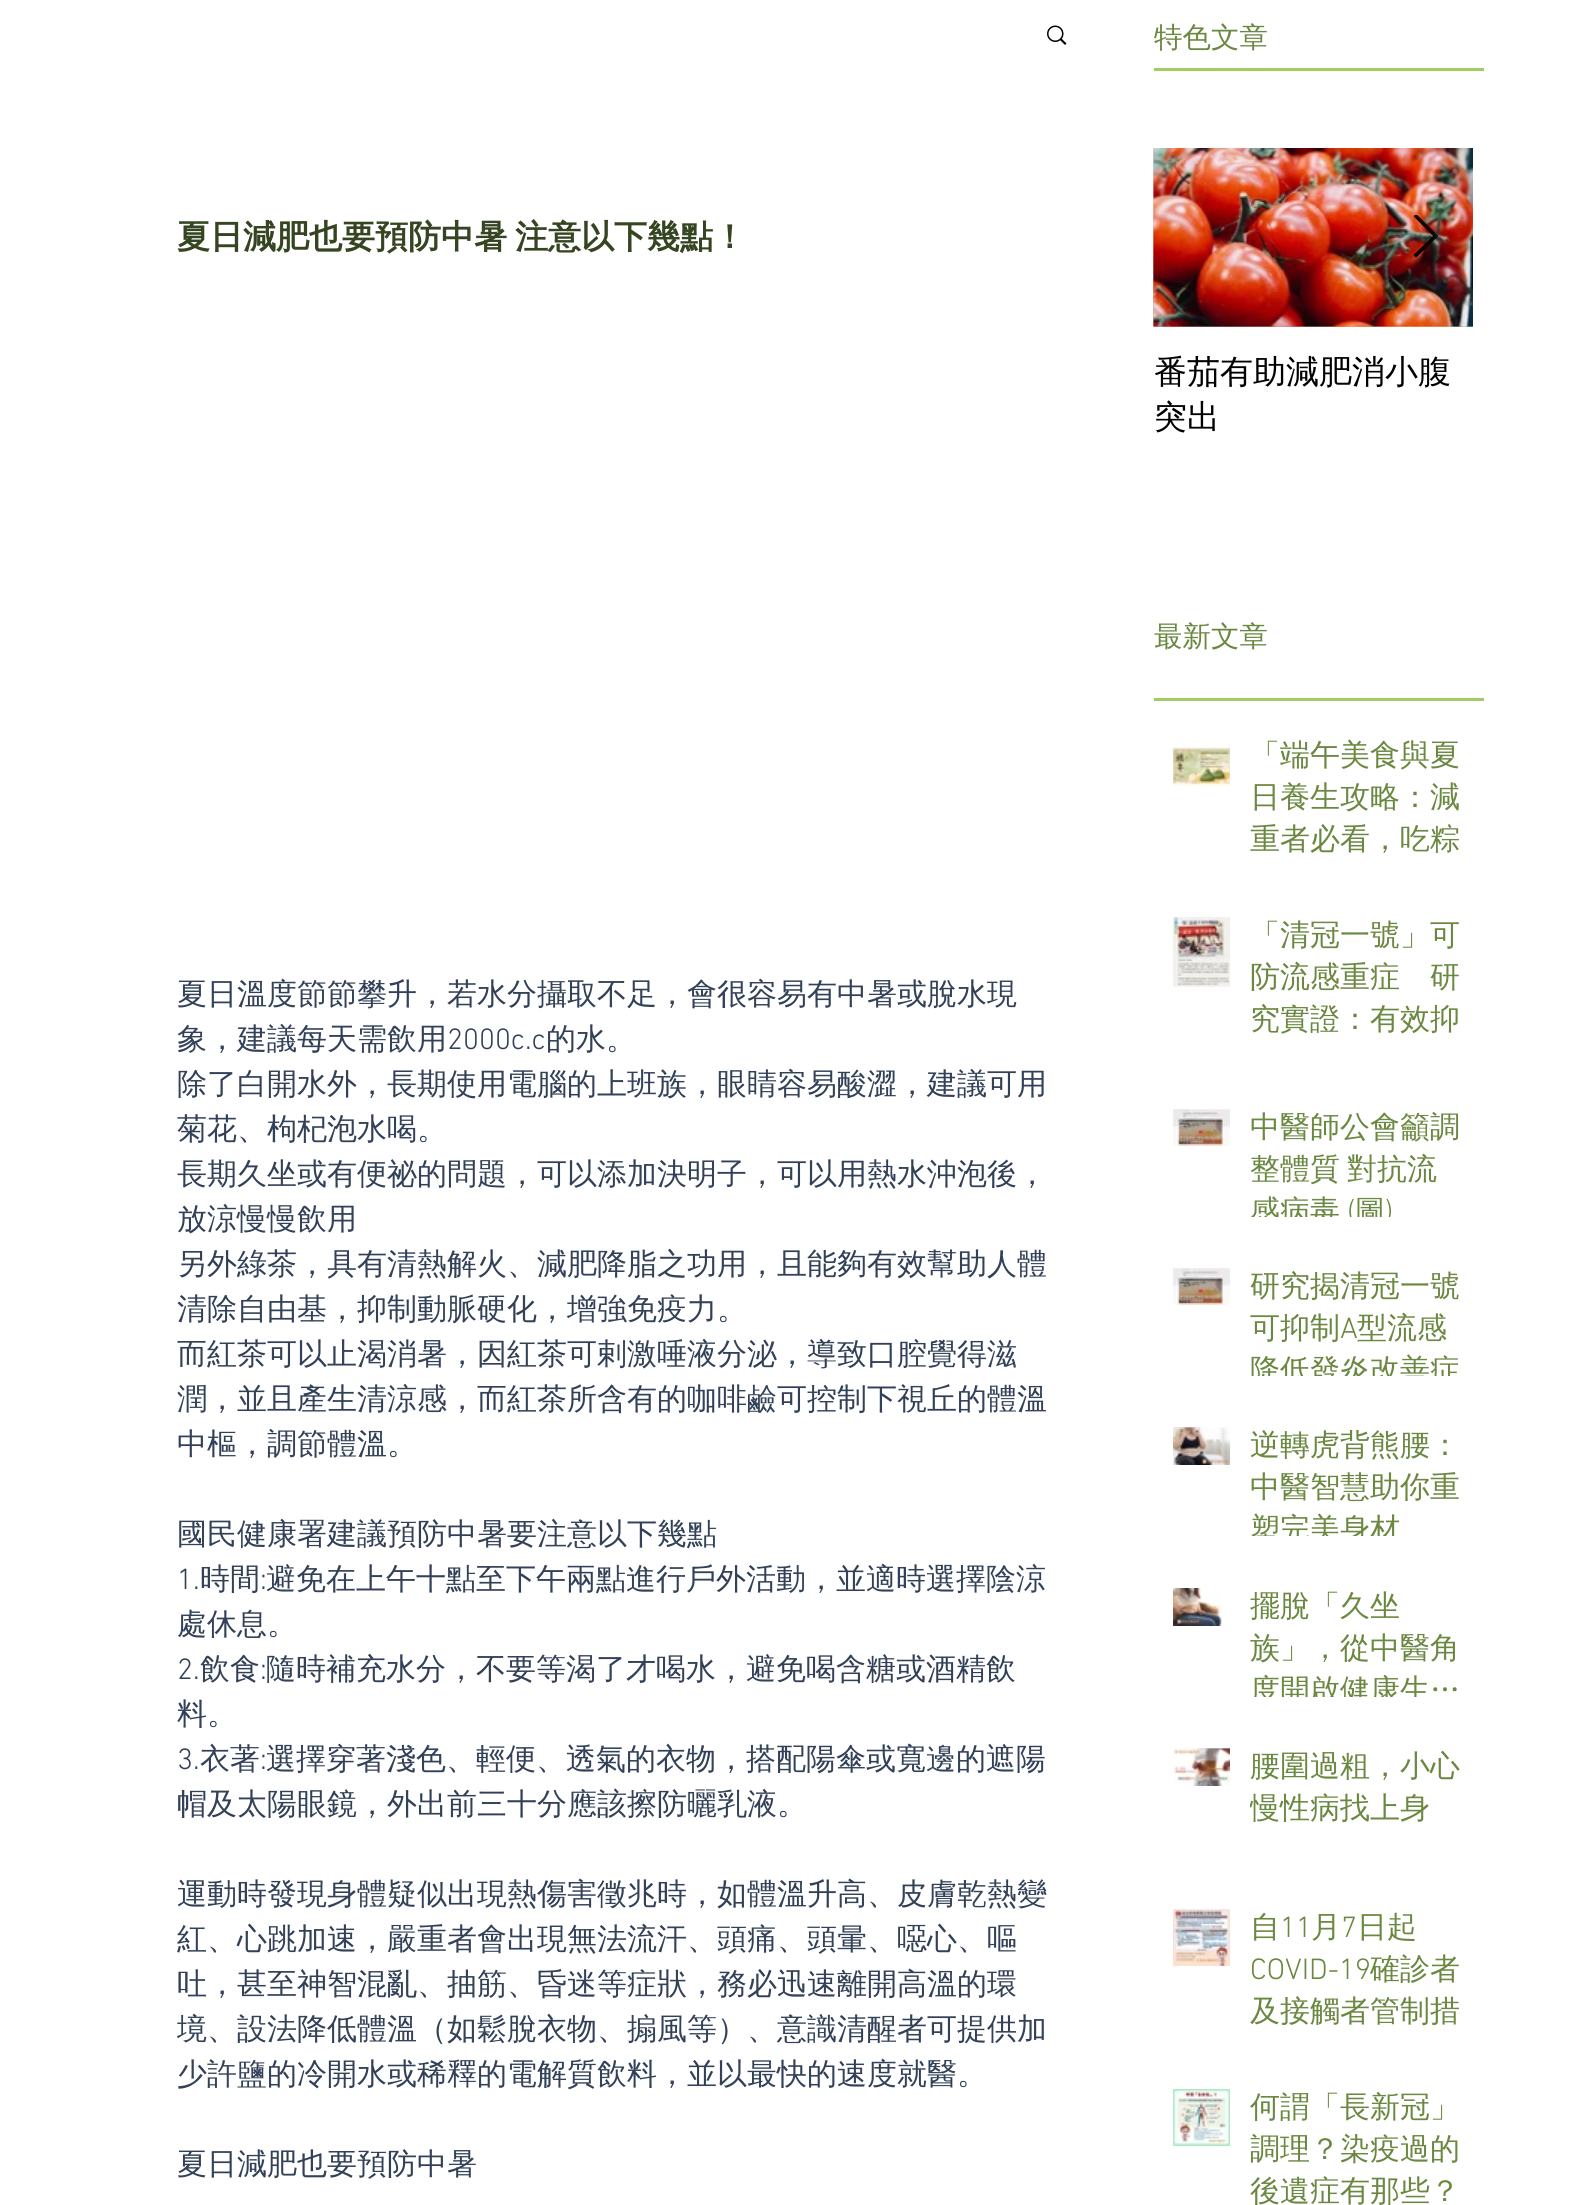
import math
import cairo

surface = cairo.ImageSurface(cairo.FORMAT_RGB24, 1592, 2205)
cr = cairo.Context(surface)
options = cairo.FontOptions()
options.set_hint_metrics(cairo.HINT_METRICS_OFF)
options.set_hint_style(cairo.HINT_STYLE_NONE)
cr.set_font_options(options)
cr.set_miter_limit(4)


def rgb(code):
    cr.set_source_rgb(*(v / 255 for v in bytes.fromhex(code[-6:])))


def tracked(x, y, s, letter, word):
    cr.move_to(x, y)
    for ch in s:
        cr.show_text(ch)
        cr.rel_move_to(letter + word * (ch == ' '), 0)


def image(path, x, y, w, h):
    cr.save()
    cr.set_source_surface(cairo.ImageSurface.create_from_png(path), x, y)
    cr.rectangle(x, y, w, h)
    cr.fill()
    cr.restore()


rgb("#ffffff")
cr.paint()
rgb("#a0cc62")
cr.rectangle(1154, 68, 330, 3)
cr.fill()
image("img/1.png", 1047, 25, 20, 20)
image("img/2.png", 1153, 148, 320, 179)
image("img/3.png", 1153, 148, 320, 179)
cr.set_source_rgba(0, 0, 0, 0.9)
cr.new_path()
cr.move_to(1414, 216)
cr.line_to(1416, 215)
cr.line_to(1437, 236)
cr.line_to(1416, 257)
cr.line_to(1414, 255)
cr.line_to(1434, 236)
cr.close_path()
cr.fill()
cr.save()
cr.rectangle(1412, 215, 27, 45)
cr.clip()
cr.new_path()
cr.move_to(1414.5, 216.5)
cr.line_to(1416, 214.5)
cr.line_to(1437.5, 236)
cr.line_to(1416, 257)
cr.line_to(1414.5, 255)
cr.line_to(1434, 236)
cr.close_path()
cr.set_line_width(1.2)
cr.stroke()
cr.restore()
rgb("#a0cc62")
cr.rectangle(1154, 698, 330, 3)
cr.fill()
image("img/4.png", 1173, 739, 57, 55)
image("img/5.png", 1173, 917, 57, 70)
image("img/6.png", 1173, 917, 57, 70)
image("img/7.png", 1173, 1109, 57, 37)
image("img/8.png", 1173, 1109, 57, 37)
image("img/7.png", 1173, 1268, 57, 37)
image("img/8.png", 1173, 1268, 57, 37)
image("img/9.png", 1173, 1427, 57, 1)
image("img/10.png", 1173, 1427, 57, 38)
image("img/11.png", 1173, 1588, 55, 38)
image("img/12.png", 1173, 1748, 57, 1)
image("img/13.png", 1173, 1748, 57, 38)
image("img/14.png", 1173, 1909, 57, 57)
image("img/15.png", 1173, 2089, 57, 57)
cr.select_font_face("WenQuanYi Zen Hei Medium")
cr.set_font_size(28.5)
rgb("#6b8841")
cr.move_to(1154, 47)
cr.show_text("特色文章")
cr.select_font_face("WenQuanYi Zen Hei", cairo.FONT_SLANT_NORMAL, cairo.FONT_WEIGHT_BOLD)
cr.set_font_size(33)
rgb("#354421")
tracked(177, 248, "夏日減肥也要預防中暑 注意以下幾點！", 0, -2)
cr.select_font_face("WenQuanYi Zen Hei Medium")
cr.set_font_size(30)
rgb("#324158")
cr.move_to(177, 1004)
cr.show_text("夏日溫度節節攀升，若水分攝取不足，會很容易有中暑或脫水現")
cr.move_to(177, 1049)
cr.show_text("象，建議每天需飲用")
cr.select_font_face("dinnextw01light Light")
cr.move_to(447, 1049)
cr.show_text("2000c.c")
cr.select_font_face("WenQuanYi Zen Hei Medium")
for x, y, s in [
    (546, 1049, "的水。"),
    (177, 1094, "除了白開水外，長期使用電腦的上班族，眼睛容易酸澀，建議可用"),
    (177, 1139, "菊花、枸杞泡水喝。"),
    (177, 1184, "長期久坐或有便祕的問題，可以添加決明子，可以用熱水沖泡後，"),
    (177, 1229, "放涼慢慢飲用"),
    (177, 1274, "另外綠茶，具有清熱解火、減肥降脂之功用，且能夠有效幫助人體"),
    (177, 1319, "清除自由基，抑制動脈硬化，增強免疫力。"),
    (177, 1364, "而紅茶可以止渴消暑，因紅茶可剌激唾液分泌，導致口腔覺得滋"),
    (177, 1409, "潤，並且產生清涼感，而紅茶所含有的咖啡鹼可控制下視丘的體溫"),
    (177, 1454, "中樞，調節體溫。"),
    (177, 1544, "國民健康署建議預防中暑要注意以下幾點"),
]:
    cr.move_to(x, y)
    cr.show_text(s)
cr.select_font_face("dinnextw01light Light")
cr.move_to(177, 1589)
cr.show_text("1.")
cr.select_font_face("WenQuanYi Zen Hei Medium")
cr.move_to(200, 1589)
cr.show_text("時間")
cr.select_font_face("dinnextw01light Light")
cr.move_to(260, 1589)
cr.show_text(":")
cr.select_font_face("WenQuanYi Zen Hei Medium")
cr.move_to(266, 1589)
cr.show_text("避免在上午十點至下午兩點進行戶外活動，並適時選擇陰涼")
cr.move_to(177, 1634)
cr.show_text("處休息。")
cr.select_font_face("dinnextw01light Light")
cr.move_to(177, 1679)
cr.show_text("2.")
cr.select_font_face("WenQuanYi Zen Hei Medium")
cr.move_to(200, 1679)
cr.show_text("飲食")
cr.select_font_face("dinnextw01light Light")
cr.move_to(260, 1679)
cr.show_text(":")
cr.select_font_face("WenQuanYi Zen Hei Medium")
cr.move_to(266, 1679)
cr.show_text("隨時補充水分，不要等渴了才喝水，避免喝含糖或酒精飲")
cr.move_to(177, 1724)
cr.show_text("料。")
cr.select_font_face("dinnextw01light Light")
cr.move_to(177, 1769)
cr.show_text("3.")
cr.select_font_face("WenQuanYi Zen Hei Medium")
cr.move_to(200, 1769)
cr.show_text("衣著")
cr.select_font_face("dinnextw01light Light")
cr.move_to(260, 1769)
cr.show_text(":")
cr.select_font_face("WenQuanYi Zen Hei Medium")
for x, y, s in [
    (266, 1769, "選擇穿著淺色、輕便、透氣的衣物，搭配陽傘或寬邊的遮陽"),
    (177, 1814, "帽及太陽眼鏡，外出前三十分應該擦防曬乳液。"),
    (177, 1904, "運動時發現身體疑似出現熱傷害徵兆時，如體溫升高、皮膚乾熱變"),
    (177, 1949, "紅、心跳加速，嚴重者會出現無法流汗、頭痛、頭暈、噁心、嘔"),
    (177, 1994, "吐，甚至神智混亂、抽筋、昏迷等症狀，務必迅速離開高溫的環"),
    (177, 2039, "境、設法降低體溫（如鬆脫衣物、搧風等）、意識清醒者可提供加"),
    (177, 2084, "少許鹽的冷開水或稀釋的電解質飲料，並以最快的速度就醫。"),
    (177, 2174, "夏日減肥也要預防中暑"),
]:
    cr.move_to(x, y)
    cr.show_text(s)
cr.set_font_size(33)
rgb("#000000")
cr.move_to(1154, 383)
cr.show_text("番茄有助減肥消小腹")
cr.move_to(1154, 428)
cr.show_text("突出")
cr.set_font_size(28.5)
rgb("#6b8841")
cr.move_to(1154, 646)
cr.show_text("最新文章")
cr.set_font_size(30)
for x, y, s in [
    (1250, 765, "「端午美食與夏"),
    (1250, 807, "日養生攻略：減"),
    (1250, 849, "重者必看，吃粽"),
    (1250, 945, "「清冠一號」可"),
    (1250, 987, "防流感重症　研"),
    (1250, 1029, "究實證：有效抑"),
    (1250, 1137, "中醫師公會籲調"),
]:
    cr.move_to(x, y)
    cr.show_text(s)
tracked(1250, 1179, "整體質 對抗流", 0, -2)
cr.save()
cr.rectangle(1250, 1109, 216, 108)
cr.clip()
cr.move_to(1250, 1221)
cr.show_text("感病毒")
cr.select_font_face("dinnextw01light Light")
cr.move_to(1347, 1221)
cr.show_text("(")
cr.select_font_face("WenQuanYi Zen Hei Medium")
cr.move_to(1355, 1221)
cr.show_text("圖")
cr.select_font_face("dinnextw01light Light")
cr.move_to(1385, 1221)
cr.show_text(")")
cr.restore()
cr.move_to(1250, 1296)
cr.show_text("研究揭清冠一號")
cr.move_to(1250, 1338)
cr.show_text("可抑制")
cr.select_font_face("dinnextw01light Light")
cr.move_to(1340, 1338)
cr.show_text("A")
cr.select_font_face("WenQuanYi Zen Hei Medium")
cr.move_to(1357, 1338)
cr.show_text("型流感")
cr.save()
cr.rectangle(1250, 1268, 216, 108)
cr.clip()
cr.move_to(1250, 1380)
cr.show_text("降低發炎改善症")
cr.restore()
cr.move_to(1250, 1455)
cr.show_text("逆轉虎背熊腰：")
cr.move_to(1250, 1497)
cr.show_text("中醫智慧助你重")
cr.save()
cr.rectangle(1250, 1427, 216, 109)
cr.clip()
cr.move_to(1250, 1539)
cr.show_text("塑完美身材")
cr.restore()
cr.move_to(1250, 1616)
cr.show_text("擺脫「久坐")
cr.move_to(1250, 1658)
cr.show_text("族」，從中醫角")
cr.save()
cr.rectangle(1250, 1587, 216, 110)
cr.clip()
cr.move_to(1250, 1700)
cr.show_text("度開啟健康生…")
cr.restore()
cr.move_to(1250, 1776)
cr.show_text("腰圍過粗，小心")
cr.save()
cr.rectangle(1250, 1748, 216, 84)
cr.clip()
cr.move_to(1250, 1818)
cr.show_text("慢性病找上身")
cr.restore()
cr.move_to(1250, 1937)
cr.show_text("自")
cr.select_font_face("dinnextw01light Light")
cr.move_to(1280, 1937)
cr.show_text("11")
cr.select_font_face("WenQuanYi Zen Hei Medium")
cr.move_to(1311, 1937)
cr.show_text("月")
cr.select_font_face("dinnextw01light Light")
cr.move_to(1341, 1937)
cr.show_text("7")
cr.select_font_face("WenQuanYi Zen Hei Medium")
cr.move_to(1357, 1937)
cr.show_text("日起")
cr.select_font_face("dinnextw01light Light")
cr.move_to(1250, 1979)
cr.show_text("COVID-19")
cr.select_font_face("WenQuanYi Zen Hei Medium")
for x, y, s in [
    (1370, 1979, "確診者"),
    (1250, 2021, "及接觸者管制措"),
    (1250, 2117, "何謂「長新冠」"),
    (1250, 2159, "調理？染疫過的"),
    (1250, 2201, "後遺症有那些？"),
]:
    cr.move_to(x, y)
    cr.show_text(s)
surface.write_to_png("page.png")
